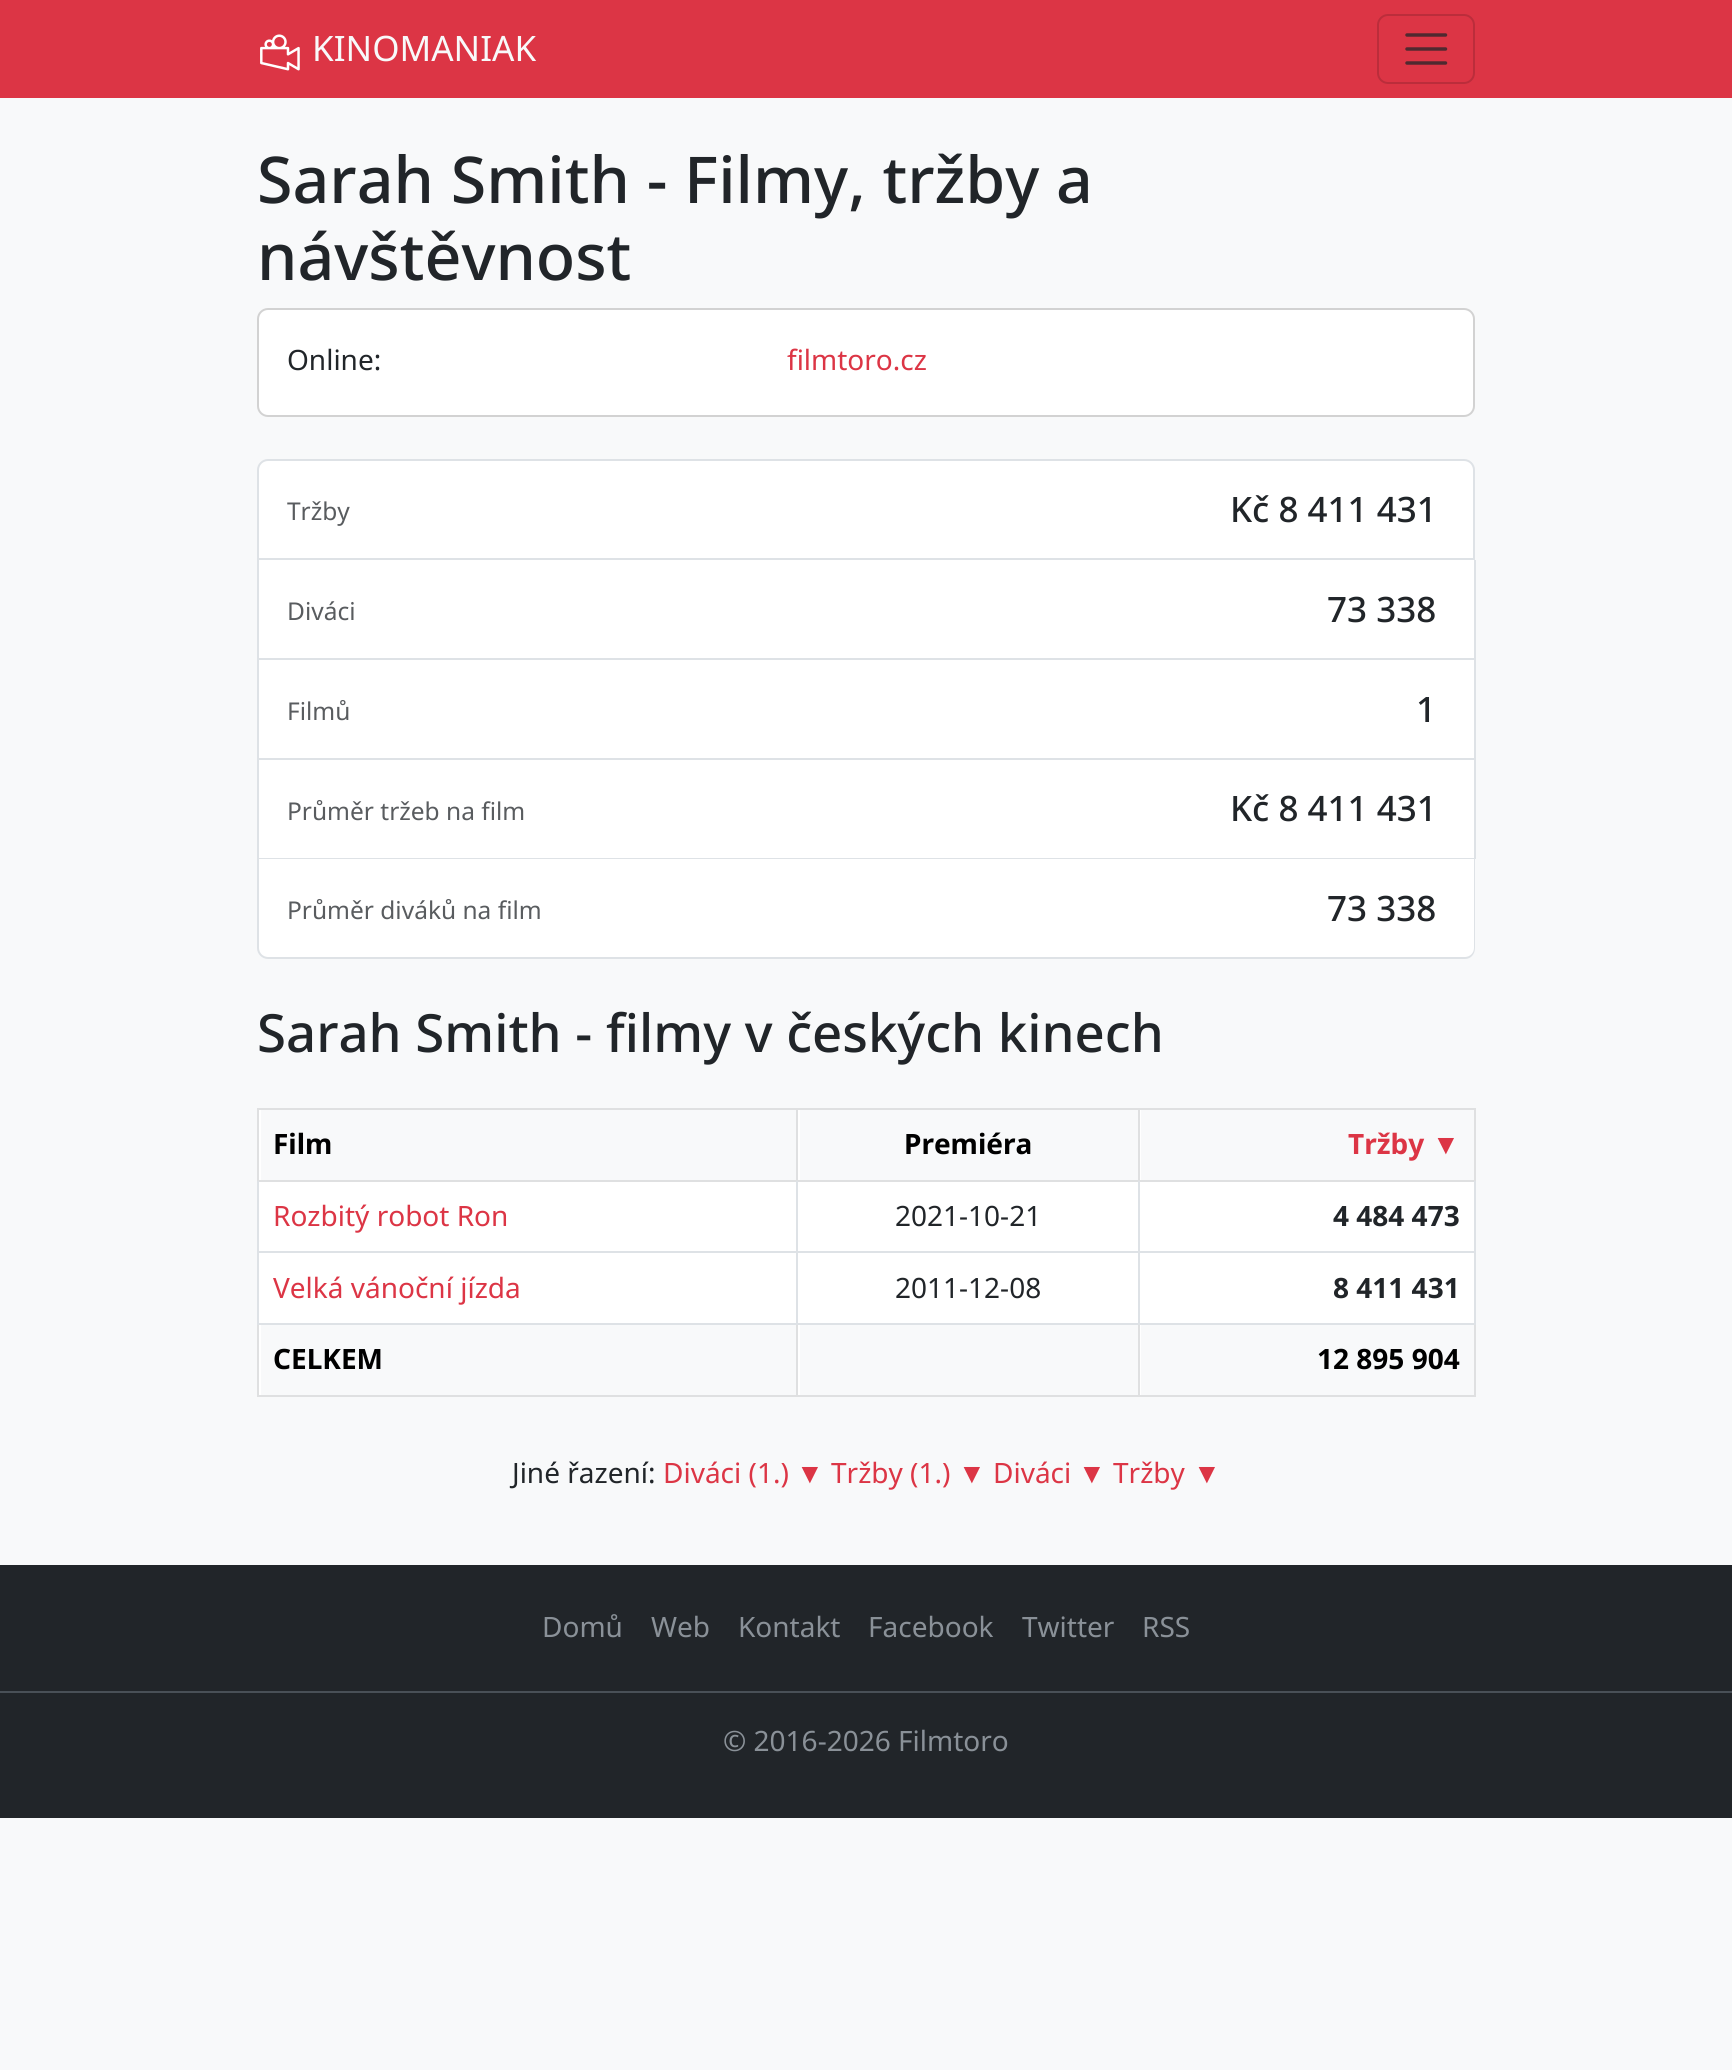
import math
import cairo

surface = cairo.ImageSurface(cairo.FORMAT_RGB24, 1732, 2070)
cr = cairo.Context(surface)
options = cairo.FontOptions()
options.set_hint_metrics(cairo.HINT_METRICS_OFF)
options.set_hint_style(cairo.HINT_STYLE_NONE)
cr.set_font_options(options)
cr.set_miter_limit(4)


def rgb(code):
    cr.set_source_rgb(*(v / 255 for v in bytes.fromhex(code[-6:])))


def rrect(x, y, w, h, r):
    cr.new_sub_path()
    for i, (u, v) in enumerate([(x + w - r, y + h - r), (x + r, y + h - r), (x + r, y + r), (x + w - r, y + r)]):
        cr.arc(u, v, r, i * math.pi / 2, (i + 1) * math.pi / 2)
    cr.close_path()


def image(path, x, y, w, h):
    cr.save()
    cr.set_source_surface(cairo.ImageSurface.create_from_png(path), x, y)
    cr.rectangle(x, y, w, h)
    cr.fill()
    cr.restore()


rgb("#f8f9fa")
cr.paint()
rgb("#dc3545")
cr.rectangle(0, 0, 1732, 98)
cr.fill()
image("img/1.png", 260, 34, 40, 37)
rrect(1378, 15, 96, 68, 10)
rgb("#bb2d3b")
cr.stroke()
cr.new_path()
cr.move_to(1407, 35)
cr.line_to(1445.5, 35)
cr.move_to(1407, 49)
cr.line_to(1445.5, 49)
cr.move_to(1407, 63)
cr.line_to(1445.5, 63)
rgb("#502930")
cr.set_line_width(3.5)
cr.set_line_cap(cairo.LINE_CAP_ROUND)
cr.stroke()
rgb("#ffffff")
rrect(258, 309, 1216, 107, 10)
cr.fill_preserve()
rgb("#d2d2d2")
cr.set_line_width(2)
cr.set_line_cap(cairo.LINE_CAP_BUTT)
cr.stroke()
rgb("#ffffff")
cr.new_path()
cr.move_to(268, 460)
cr.line_to(1464, 460)
cr.curve_to(1469.5, 460, 1474, 464.5, 1474, 470)
cr.line_to(1474, 559)
cr.line_to(258, 559)
cr.line_to(258, 470)
cr.curve_to(258, 464.5, 262.5, 460, 268, 460)
cr.close_path()
cr.fill_preserve()
rgb("#dee2e6")
cr.stroke()
for x, y, w, h, color in [
    (259, 560, 1215, 98, "#ffffff"),
    (1474, 560, 2, 299, "#dee2e6"),
    (257, 658, 1218, 2, "#dee2e6"),
    (257, 560, 2, 100, "#dee2e6"),
    (259, 660, 1215, 98, "#ffffff"),
    (257, 758, 1218, 2, "#dee2e6"),
    (257, 660, 2, 100, "#dee2e6"),
    (259, 760, 1215, 98, "#ffffff"),
    (257, 858, 1218, 1, "#dee2e6"),
    (257, 760, 2, 99, "#dee2e6"),
]:
    rgb(color)
    cr.rectangle(x, y, w, h)
    cr.fill()
rgb("#ffffff")
cr.new_path()
cr.move_to(259, 859)
cr.line_to(1474, 859)
cr.line_to(1474, 948)
cr.curve_to(1474, 953, 1470, 957, 1465, 957)
cr.line_to(268, 957)
cr.curve_to(263, 957, 259, 953, 259, 948)
cr.close_path()
cr.fill()
rgb("#dee2e6")
cr.set_fill_rule(cairo.FILL_RULE_EVEN_ODD)
cr.new_path()
cr.move_to(257, 859)
cr.line_to(1475, 859)
cr.line_to(1475, 948)
cr.curve_to(1475, 954, 1471, 959, 1465, 959)
cr.line_to(268, 959)
cr.curve_to(262, 959, 257, 954, 257, 948)
cr.close_path()
cr.move_to(259, 859)
cr.line_to(1474, 859)
cr.line_to(1474, 948)
cr.curve_to(1474, 953, 1470, 957, 1465, 957)
cr.line_to(268, 957)
cr.curve_to(263, 957, 259, 953, 259, 948)
cr.close_path()
cr.fill()
for x, y, w, h, color in [
    (259, 1110, 1215, 285, "#ffffff"),
    (257, 1108, 1218, 2, "#dfe0e1"),
    (257, 1180, 1218, 2, "#dfe0e1"),
    (261, 1110, 535, 70, "#f8f9fa"),
    (257, 1251, 1218, 2, "#dee2e6"),
    (257, 1323, 1218, 2, "#dee2e6"),
    (257, 1395, 1218, 2, "#dfe0e1"),
    (257, 1323, 2, 74, "#dfe0e1"),
    (257, 1180, 2, 145, "#dee2e6"),
    (257, 1108, 2, 73, "#dfe0e1"),
    (800, 1110, 338, 70, "#f8f9fa"),
    (796, 1323, 2, 74, "#dfe0e1"),
    (796, 1180, 2, 145, "#dee2e6"),
    (796, 1108, 2, 73, "#dfe0e1"),
    (1141, 1110, 333, 70, "#f8f9fa"),
    (1474, 1323, 2, 74, "#dfe0e1"),
    (1474, 1180, 2, 145, "#dee2e6"),
    (1474, 1108, 2, 73, "#dfe0e1"),
    (1138, 1323, 2, 74, "#dfe0e1"),
    (1138, 1180, 2, 145, "#dee2e6"),
    (1138, 1108, 2, 73, "#dfe0e1"),
    (261, 1325, 535, 70, "#f8f9fa"),
    (800, 1325, 338, 70, "#f8f9fa"),
    (1141, 1325, 333, 70, "#f8f9fa"),
    (0, 1565, 1732, 253, "#212529"),
    (0, 1691, 1732, 2, "#495057"),
]:
    rgb(color)
    cr.rectangle(x, y, w, h)
    cr.fill()
cr.select_font_face("Noto Sans")
cr.set_font_size(35)
rgb("#f8f9fa")
cr.move_to(312, 61)
cr.show_text("KINOMANIAK")
cr.select_font_face("Noto Sans Medium")
cr.set_font_size(64.5)
rgb("#212529")
cr.move_to(257, 203)
cr.show_text("Sarah Smith - Filmy, tržby a")
cr.move_to(257, 280)
cr.show_text("návštěvnost")
cr.select_font_face("Noto Sans")
cr.set_font_size(28)
cr.move_to(287, 370)
cr.show_text("Online:")
rgb("#dc3545")
cr.move_to(787, 370)
cr.show_text("filmtoro.cz")
cr.set_font_size(24.5)
rgb("#595c5f")
cr.move_to(287, 520)
cr.show_text("Tržby")
cr.select_font_face("Noto Sans Medium")
cr.set_font_size(35)
rgb("#212529")
cr.move_to(1230, 522)
cr.show_text("Kč 8 411 431")
cr.select_font_face("Noto Sans")
cr.set_font_size(24.5)
rgb("#595c5f")
cr.move_to(287, 620)
cr.show_text("Diváci")
cr.select_font_face("Noto Sans Medium")
cr.set_font_size(35)
rgb("#212529")
cr.move_to(1327, 622)
cr.show_text("73 338")
cr.select_font_face("Noto Sans")
cr.set_font_size(24.5)
rgb("#595c5f")
cr.move_to(287, 720)
cr.show_text("Filmů")
cr.select_font_face("Noto Sans Medium")
cr.set_font_size(35)
rgb("#212529")
cr.move_to(1416, 722)
cr.show_text("1")
cr.select_font_face("Noto Sans")
cr.set_font_size(24.5)
rgb("#595c5f")
cr.move_to(287, 820)
cr.show_text("Průměr tržeb na film")
cr.select_font_face("Noto Sans Medium")
cr.set_font_size(35)
rgb("#212529")
cr.move_to(1230, 821)
cr.show_text("Kč 8 411 431")
cr.select_font_face("Noto Sans")
cr.set_font_size(24.5)
rgb("#595c5f")
cr.move_to(287, 919)
cr.show_text("Průměr diváků na film")
cr.select_font_face("Noto Sans Medium")
cr.set_font_size(35)
rgb("#212529")
cr.move_to(1327, 921)
cr.show_text("73 338")
cr.set_font_size(52.7)
cr.move_to(257, 1052)
cr.show_text("Sarah Smith - filmy v českých kinech")
cr.select_font_face("Noto Sans", cairo.FONT_SLANT_NORMAL, cairo.FONT_WEIGHT_BOLD)
cr.set_font_size(28)
rgb("#000000")
cr.move_to(273, 1154)
cr.show_text("Film")
cr.move_to(904, 1154)
cr.show_text("Premiéra")
rgb("#dc3545")
cr.move_to(1348, 1154)
cr.show_text("Tržby")
cr.select_font_face("Liberation Sans", cairo.FONT_SLANT_NORMAL, cairo.FONT_WEIGHT_BOLD)
cr.move_to(1432, 1154)
cr.show_text("▼")
cr.select_font_face("Noto Sans")
cr.move_to(273, 1226)
cr.show_text("Rozbitý robot Ron")
rgb("#212529")
cr.move_to(895, 1226)
cr.show_text("2021-10-21")
cr.select_font_face("Noto Sans", cairo.FONT_SLANT_NORMAL, cairo.FONT_WEIGHT_BOLD)
cr.move_to(1333, 1226)
cr.show_text("4 484 473")
cr.select_font_face("Noto Sans")
rgb("#dc3545")
cr.move_to(273, 1298)
cr.show_text("Velká vánoční jízda")
rgb("#212529")
cr.move_to(895, 1298)
cr.show_text("2011-12-08")
cr.select_font_face("Noto Sans", cairo.FONT_SLANT_NORMAL, cairo.FONT_WEIGHT_BOLD)
cr.move_to(1333, 1298)
cr.show_text("8 411 431")
rgb("#000000")
cr.move_to(273, 1369)
cr.show_text("CELKEM")
cr.move_to(1317, 1369)
cr.show_text("12 895 904")
cr.select_font_face("Noto Sans")
rgb("#212529")
cr.move_to(512, 1483)
cr.show_text("Jiné řazení:")
rgb("#dc3545")
cr.move_to(663, 1483)
cr.show_text("Diváci (1.)")
cr.select_font_face("Liberation Sans")
cr.move_to(796, 1483)
cr.show_text("▼")
cr.select_font_face("Noto Sans")
cr.move_to(831, 1483)
cr.show_text("Tržby (1.)")
cr.select_font_face("Liberation Sans")
cr.move_to(958, 1483)
cr.show_text("▼")
cr.select_font_face("Noto Sans")
cr.move_to(993, 1483)
cr.show_text("Diváci")
cr.select_font_face("Liberation Sans")
cr.move_to(1078, 1483)
cr.show_text("▼")
cr.select_font_face("Noto Sans")
cr.move_to(1113, 1483)
cr.show_text("Tržby")
cr.select_font_face("Liberation Sans")
cr.move_to(1193, 1483)
cr.show_text("▼")
cr.select_font_face("Noto Sans")
rgb("#8a9198")
for x, y, s in [
    (542, 1637, "Domů"),
    (651, 1637, "Web"),
    (738, 1637, "Kontakt"),
    (868, 1637, "Facebook"),
    (1022, 1637, "Twitter"),
    (1142, 1637, "RSS"),
    (723, 1751, "© 2016-2026 Filmtoro"),
]:
    cr.move_to(x, y)
    cr.show_text(s)
surface.write_to_png("page.png")
